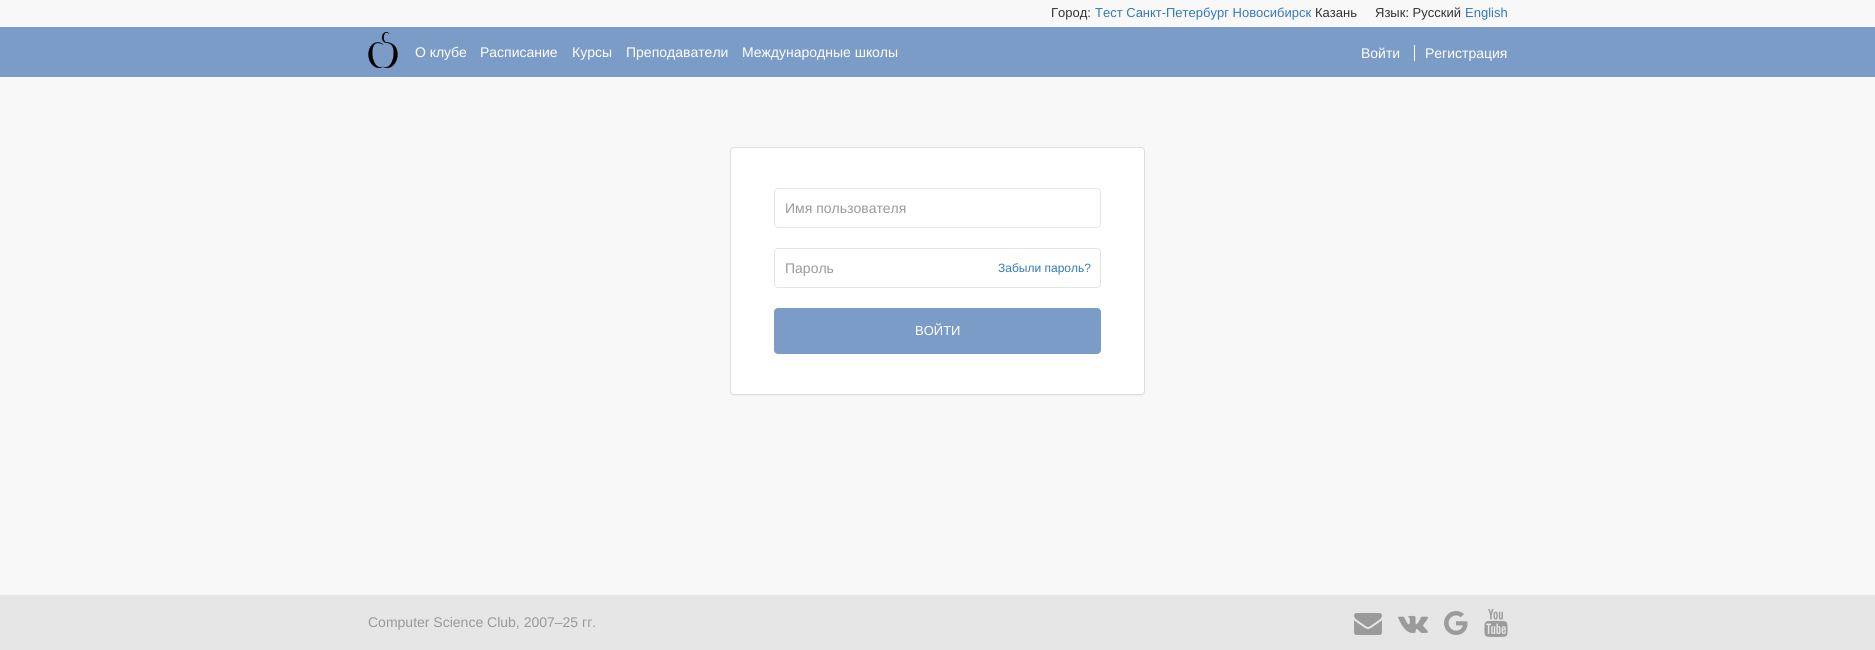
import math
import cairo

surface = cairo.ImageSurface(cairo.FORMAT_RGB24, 1875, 650)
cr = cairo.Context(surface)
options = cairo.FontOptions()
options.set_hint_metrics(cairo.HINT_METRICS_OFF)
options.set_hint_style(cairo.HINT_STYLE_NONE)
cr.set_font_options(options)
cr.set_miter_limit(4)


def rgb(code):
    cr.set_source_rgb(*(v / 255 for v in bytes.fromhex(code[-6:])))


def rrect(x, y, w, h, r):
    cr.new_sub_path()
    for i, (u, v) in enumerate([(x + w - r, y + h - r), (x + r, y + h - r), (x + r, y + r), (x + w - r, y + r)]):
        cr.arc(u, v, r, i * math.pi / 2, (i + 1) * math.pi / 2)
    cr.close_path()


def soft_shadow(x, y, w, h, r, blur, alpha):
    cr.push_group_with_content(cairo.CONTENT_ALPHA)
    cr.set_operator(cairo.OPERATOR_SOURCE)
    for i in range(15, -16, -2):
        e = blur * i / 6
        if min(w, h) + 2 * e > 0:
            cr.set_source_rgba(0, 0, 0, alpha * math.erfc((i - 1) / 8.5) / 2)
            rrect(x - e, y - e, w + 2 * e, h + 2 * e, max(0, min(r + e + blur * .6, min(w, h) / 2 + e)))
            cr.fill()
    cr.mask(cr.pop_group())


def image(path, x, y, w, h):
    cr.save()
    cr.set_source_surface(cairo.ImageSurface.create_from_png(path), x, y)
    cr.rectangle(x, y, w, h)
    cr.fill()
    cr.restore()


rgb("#f8f8f8")
cr.paint()
rgb("#7a9cc6")
cr.rectangle(0, 27, 1875, 50)
cr.fill()
image("img/1.png", 368, 32, 30, 36)
rgb("#ffffff")
cr.rectangle(1414, 45, 1, 16)
cr.fill()
rgb("#000000")
soft_shadow(730, 148, 415, 248, 4, 0.5, 0.05)
rgb("#ffffff")
rrect(730.5, 147.5, 414, 247, 3.5)
cr.fill_preserve()
rgb("#dddddd")
cr.set_line_width(1)
cr.stroke()
rrect(774.5, 188.5, 326, 39, 3.5)
rgb("#e3e6e7")
cr.stroke()
rrect(774.5, 248.5, 326, 39, 3.5)
cr.stroke()
rgb("#7a9cc6")
rrect(774, 308, 327, 46, 4)
cr.fill()
rgb("#e6e6e6")
cr.rectangle(0, 595, 1875, 55)
cr.fill()
image("img/2.png", 1354, 613, 28, 22)
image("img/3.png", 1398, 615, 30, 18)
image("img/4.png", 1444, 611, 24, 24)
image("img/5.png", 1484, 609, 24, 28)
cr.select_font_face("Liberation Sans")
cr.set_font_size(13)
rgb("#333333")
cr.move_to(1051, 17)
cr.show_text("Город:")
rgb("#337ab7")
cr.move_to(1095, 17)
cr.show_text("Тест Санкт-Петербург Новосибирск")
rgb("#333333")
cr.move_to(1315, 17)
cr.show_text("Казань")
cr.move_to(1375, 17)
cr.show_text("Язык: Русский")
rgb("#337ab7")
cr.move_to(1465, 17)
cr.show_text("English")
cr.set_font_size(14)
rgb("#ffffff")
for x, y, s in [
    (415, 57, "О клубе"),
    (480, 57, "Расписание"),
    (572, 57, "Курсы"),
    (626, 57, "Преподаватели"),
    (742, 57, "Международные школы"),
    (1361, 58, "Войти"),
    (1425, 58, "Регистрация"),
]:
    cr.move_to(x, y)
    cr.show_text(s)
rgb("#999999")
cr.move_to(785, 213)
cr.show_text("Имя пользователя")
cr.move_to(785, 273)
cr.show_text("Пароль")
cr.set_font_size(12)
rgb("#337ab7")
cr.move_to(998, 272)
cr.show_text("Забыли пароль?")
cr.set_font_size(13)
rgb("#ffffff")
cr.move_to(915, 335)
cr.show_text("ВОЙТИ")
cr.set_font_size(14)
rgb("#999999")
cr.move_to(368, 627)
cr.show_text("Computer Science Club, 2007–25 гг.")
surface.write_to_png("page.png")
